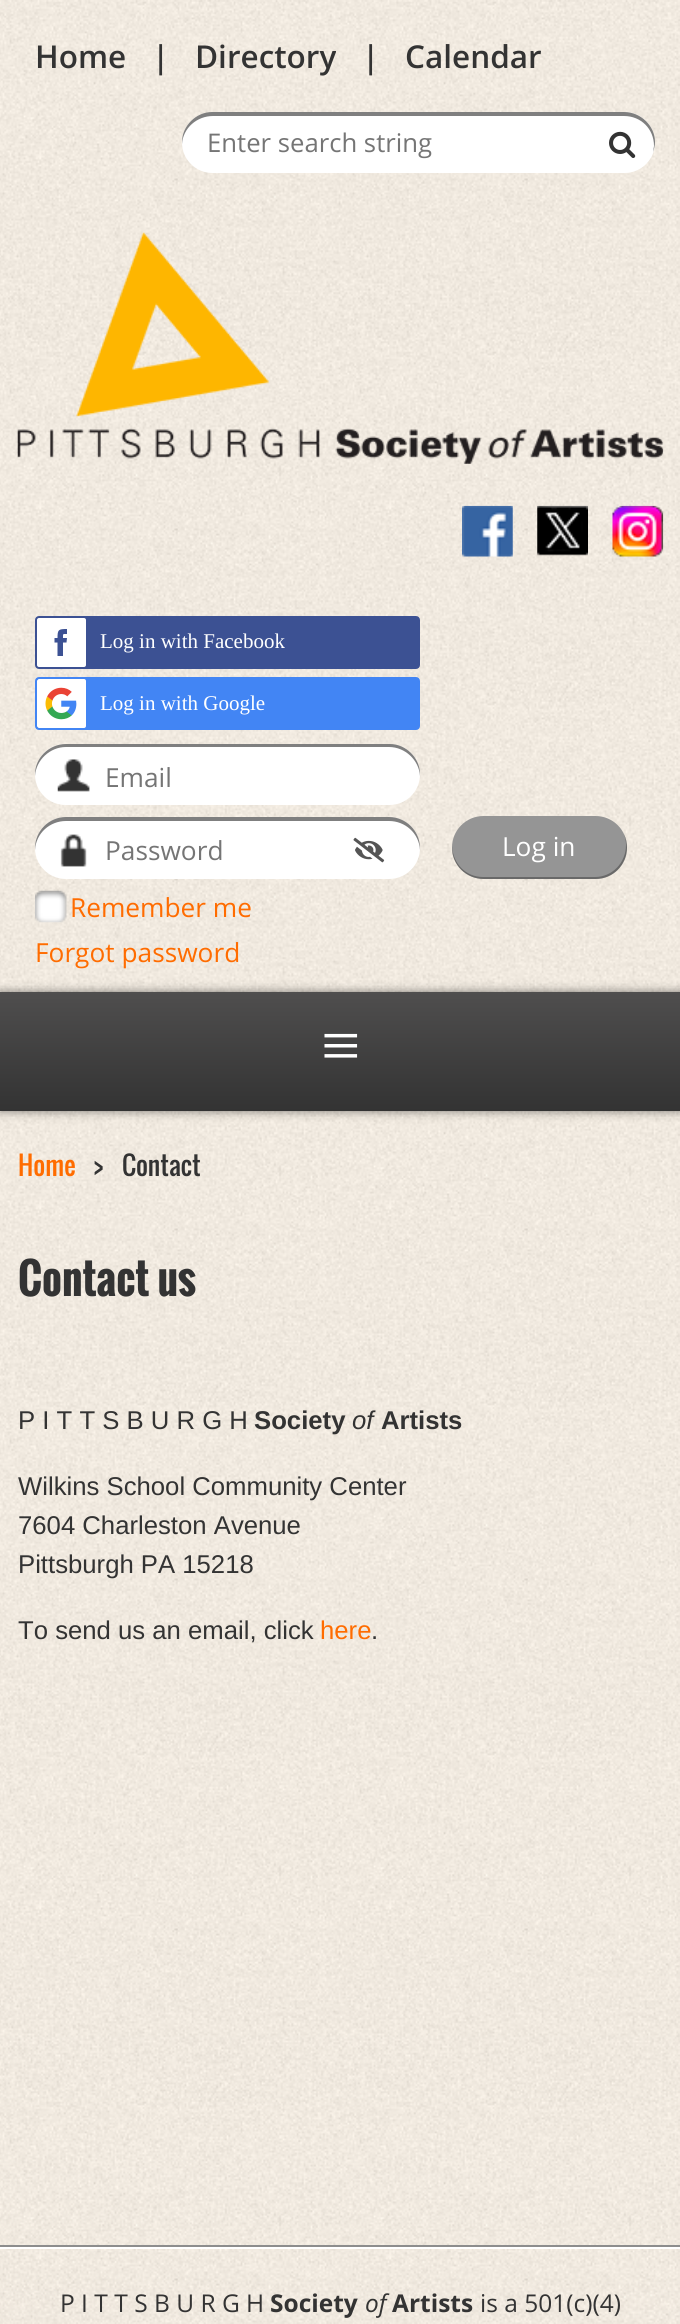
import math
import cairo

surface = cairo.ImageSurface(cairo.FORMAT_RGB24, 680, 2324)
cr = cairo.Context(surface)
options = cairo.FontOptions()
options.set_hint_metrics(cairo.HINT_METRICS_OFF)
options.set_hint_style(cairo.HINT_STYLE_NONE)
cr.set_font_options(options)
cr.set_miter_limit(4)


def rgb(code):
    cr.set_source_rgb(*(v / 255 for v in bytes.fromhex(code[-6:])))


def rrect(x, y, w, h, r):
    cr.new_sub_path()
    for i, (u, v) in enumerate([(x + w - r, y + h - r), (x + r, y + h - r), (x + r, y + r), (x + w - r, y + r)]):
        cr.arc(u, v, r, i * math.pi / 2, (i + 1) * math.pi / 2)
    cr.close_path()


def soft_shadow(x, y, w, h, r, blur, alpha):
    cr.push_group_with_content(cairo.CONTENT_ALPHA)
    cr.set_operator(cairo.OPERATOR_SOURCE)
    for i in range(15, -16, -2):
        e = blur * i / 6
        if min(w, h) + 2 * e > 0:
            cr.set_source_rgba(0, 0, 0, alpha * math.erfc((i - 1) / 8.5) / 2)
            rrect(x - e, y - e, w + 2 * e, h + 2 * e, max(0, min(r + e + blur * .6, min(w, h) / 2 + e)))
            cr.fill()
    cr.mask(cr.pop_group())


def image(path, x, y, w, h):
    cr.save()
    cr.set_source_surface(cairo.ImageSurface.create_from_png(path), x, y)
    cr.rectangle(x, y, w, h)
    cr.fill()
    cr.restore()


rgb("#ffffff")
cr.paint()
image("img/1.png", 0, 0, 680, 2324)
rgb("#ffffff")
rrect(182, 112, 473, 61, 30.5)
cr.fill()
cr.set_source_rgba(0, 0, 0, 0.5)
cr.new_path()
cr.move_to(213, 116)
cr.line_to(624, 116)
cr.curve_to(641, 116, 654, 129, 654, 146)
cr.line_to(653, 152)
cr.curve_to(654, 149, 655, 146, 655, 142)
cr.curve_to(655, 126, 641, 112, 624, 112)
cr.line_to(212, 112)
cr.curve_to(196, 112, 182, 126, 182, 142)
cr.line_to(182, 144)
cr.curve_to(183, 128, 197, 116, 213, 116)
cr.close_path()
cr.fill()
image("img/2.png", 609, 131, 27, 27)
image("img/3.png", 17, 232, 647, 232)
image("img/4.png", 462, 505, 51, 52)
image("img/5.png", 537, 505, 51, 51)
image("img/6.png", 612, 505, 52, 52)
rgb("#3c5193")
rrect(36, 617, 383, 51, 3)
cr.fill_preserve()
cr.stroke()
rgb("#ffffff")
rrect(37, 618, 49, 49, 2)
cr.fill()
rgb("#3c5193")
cr.set_fill_rule(cairo.FILL_RULE_EVEN_ODD)
cr.new_path()
cr.move_to(54.5, 638)
cr.line_to(54.5, 642.5)
cr.line_to(57.5, 642.5)
cr.line_to(57.5, 656)
cr.line_to(63, 656)
cr.line_to(63, 642.5)
cr.line_to(66.5, 642.5)
cr.line_to(67, 638)
cr.line_to(63, 638)
cr.curve_to(63, 633.5, 62.5, 634, 67, 634)
cr.line_to(67, 629)
cr.curve_to(58.5, 629, 57.5, 629.5, 57.5, 638)
cr.close_path()
cr.fill()
rgb("#4285f4")
rrect(36, 678, 383, 51, 3)
cr.fill_preserve()
cr.stroke()
image("img/7.png", 37, 679, 49, 49)
rgb("#ffffff")
rrect(35, 744, 385, 61, 30.5)
cr.fill()
image("img/8.png", 57, 759, 33, 33)
cr.set_source_rgba(0, 0, 0, 0.5)
cr.set_fill_rule(cairo.FILL_RULE_WINDING)
cr.new_path()
cr.move_to(66, 747)
cr.line_to(389, 747)
cr.curve_to(405, 747, 419, 760, 420, 776)
cr.line_to(420, 774)
cr.curve_to(420, 758, 406, 744, 390, 744)
cr.line_to(66, 744)
cr.curve_to(49, 744, 35, 758, 35, 774)
cr.line_to(35, 776)
cr.curve_to(36, 760, 50, 747, 66, 747)
cr.close_path()
cr.fill()
rgb("#ffffff")
rrect(35, 817, 385, 62, 31)
cr.fill()
image("img/9.png", 60, 834, 27, 33)
cr.set_source_rgba(0, 0, 0, 0.5)
cr.new_path()
cr.move_to(66, 821)
cr.line_to(389, 821)
cr.curve_to(405, 821, 419, 833, 420, 850)
cr.line_to(420, 848)
cr.curve_to(420, 831, 406, 817, 389, 817)
cr.line_to(66, 817)
cr.curve_to(49, 817, 35, 831, 35, 848)
cr.line_to(35, 850)
cr.curve_to(36, 833, 50, 821, 66, 821)
cr.close_path()
cr.fill()
image("img/10.png", 353, 837, 32, 26)
rgb("#959595")
rrect(452, 816, 175, 63, 31.5)
cr.fill()
cr.set_source_rgba(0, 0, 0, 0.3)
cr.new_path()
cr.move_to(452, 846)
cr.line_to(452, 848)
cr.curve_to(452, 865, 466, 879, 484, 879)
cr.line_to(596, 879)
cr.curve_to(613, 879, 627, 865, 627, 848)
cr.curve_to(627, 843, 626, 838, 624, 834)
cr.curve_to(625, 837, 626, 841, 626, 845)
cr.curve_to(626, 863, 612, 877, 595, 877)
cr.line_to(483, 877)
cr.curve_to(466, 877, 453, 864, 452, 846)
cr.close_path()
cr.fill()
image("img/11.png", 35, 890, 32, 33)
rgb("#000000")
soft_shadow(0, 992, 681, 119, 0, 5, 0.5)
gradient = cairo.LinearGradient(340, 992, 340, 1111)
gradient.add_color_stop_rgba(0, 0.31, 0.306, 0.306, 1)
gradient.add_color_stop_rgba(1, 0.2, 0.2, 0.2, 1)
cr.set_source(gradient)
cr.rectangle(0, 992, 680, 119)
cr.fill()
rgb("#8d8d8d")
cr.rectangle(0, 2245, 680, 2)
cr.fill()
rgb("#ffffff")
cr.rectangle(0, 2247, 680, 2)
cr.fill()
cr.select_font_face("Open Sans SemiBold")
cr.set_font_size(31.5)
rgb("#333333")
for x, y, s in [
    (35, 68, "Home"),
    (152, 68, "|"),
    (195, 68, "Directory"),
    (362, 68, "|"),
    (405, 68, "Calendar"),
]:
    cr.move_to(x, y)
    cr.show_text(s)
cr.select_font_face("Open Sans")
cr.set_font_size(25.7)
rgb("#757575")
cr.move_to(207, 152)
cr.show_text("Enter search string")
cr.select_font_face("Liberation Serif")
cr.set_font_size(21)
rgb("#ffffff")
cr.move_to(100, 648)
cr.show_text("Log in with Facebook")
cr.move_to(100, 710)
cr.show_text("Log in with Google")
cr.select_font_face("Open Sans")
cr.set_font_size(26.25)
rgb("#757575")
cr.move_to(105, 787)
cr.show_text("Email")
cr.move_to(105, 860)
cr.show_text("Password")
rgb("#ffffff")
cr.move_to(502, 856)
cr.show_text("Log in")
rgb("#ff6c00")
cr.move_to(70, 917)
cr.show_text("Remember me")
cr.move_to(35, 962)
cr.show_text("Forgot password")
cr.select_font_face("Liberation Serif")
cr.set_font_size(70)
rgb("#ffffff")
cr.move_to(321, 1069)
cr.show_text("≡")
cr.select_font_face("Oswald")
cr.set_font_size(25.7)
rgb("#ff6c00")
cr.move_to(18, 1176)
cr.show_text("Home")
rgb("#333333")
cr.move_to(93, 1176)
cr.show_text(">")
cr.move_to(122, 1176)
cr.show_text("Contact")
cr.select_font_face("Oswald", cairo.FONT_SLANT_NORMAL, cairo.FONT_WEIGHT_BOLD)
cr.set_font_size(42)
cr.move_to(18, 1296)
cr.show_text("Contact us")
cr.select_font_face("Liberation Sans")
cr.set_font_size(25.7)
cr.move_to(18, 1429)
cr.show_text("P I T T S B U R G H")
cr.select_font_face("Liberation Sans", cairo.FONT_SLANT_NORMAL, cairo.FONT_WEIGHT_BOLD)
cr.move_to(254, 1429)
cr.show_text("Society")
cr.select_font_face("Liberation Sans", cairo.FONT_SLANT_ITALIC)
cr.move_to(352, 1429)
cr.show_text("of")
cr.select_font_face("Liberation Sans", cairo.FONT_SLANT_NORMAL, cairo.FONT_WEIGHT_BOLD)
cr.move_to(381, 1429)
cr.show_text("Artists")
cr.select_font_face("Liberation Sans")
for x, y, s in [
    (18, 1495, "Wilkins School Community Center"),
    (18, 1534, "7604 Charleston Avenue"),
    (18, 1573, "Pittsburgh PA 15218"),
    (18, 1639, "To send us an email, click"),
]:
    cr.move_to(x, y)
    cr.show_text(s)
rgb("#ff6c00")
cr.move_to(320, 1639)
cr.show_text("here")
rgb("#333333")
cr.move_to(371, 1639)
cr.show_text(".")
cr.select_font_face("Open Sans")
cr.set_font_size(24.5)
cr.move_to(60, 2312)
cr.show_text("P I T T S B U R G H")
cr.select_font_face("Open Sans", cairo.FONT_SLANT_NORMAL, cairo.FONT_WEIGHT_BOLD)
cr.move_to(270, 2312)
cr.show_text("Society")
cr.select_font_face("Open Sans", cairo.FONT_SLANT_ITALIC)
cr.move_to(365, 2312)
cr.show_text("of")
cr.select_font_face("Open Sans", cairo.FONT_SLANT_NORMAL, cairo.FONT_WEIGHT_BOLD)
cr.move_to(392, 2312)
cr.show_text("Artists")
cr.select_font_face("Open Sans")
cr.move_to(480, 2312)
cr.show_text("is a 501(c)(4)")
surface.write_to_png("page.png")
